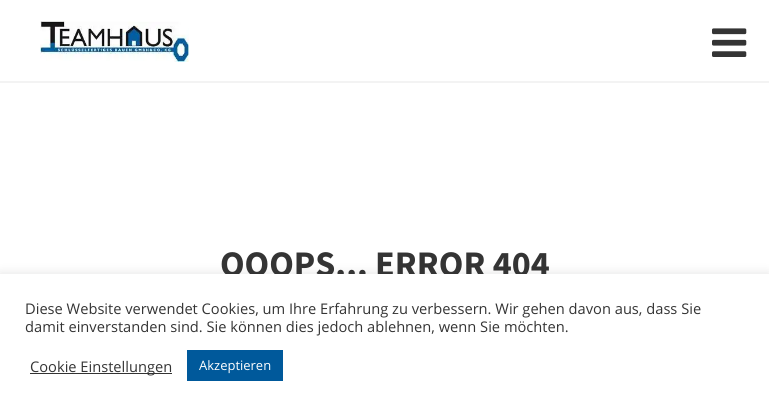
import math
import cairo

surface = cairo.ImageSurface(cairo.FORMAT_RGB24, 769, 411)
cr = cairo.Context(surface)
options = cairo.FontOptions()
options.set_hint_metrics(cairo.HINT_METRICS_OFF)
options.set_hint_style(cairo.HINT_STYLE_NONE)
cr.set_font_options(options)
cr.set_miter_limit(4)


def rgb(code):
    cr.set_source_rgb(*(v / 255 for v in bytes.fromhex(code[-6:])))


def rrect(x, y, w, h, r):
    cr.new_sub_path()
    for i, (u, v) in enumerate([(x + w - r, y + h - r), (x + r, y + h - r), (x + r, y + r), (x + w - r, y + r)]):
        cr.arc(u, v, r, i * math.pi / 2, (i + 1) * math.pi / 2)
    cr.close_path()


def soft_shadow(x, y, w, h, r, blur, alpha):
    cr.push_group_with_content(cairo.CONTENT_ALPHA)
    cr.set_operator(cairo.OPERATOR_SOURCE)
    for i in range(15, -16, -2):
        e = blur * i / 6
        if min(w, h) + 2 * e > 0:
            cr.set_source_rgba(0, 0, 0, alpha * math.erfc((i - 1) / 8.5) / 2)
            rrect(x - e, y - e, w + 2 * e, h + 2 * e, max(0, min(r + e + blur * .6, min(w, h) / 2 + e)))
            cr.fill()
    cr.mask(cr.pop_group())


def image(path, x, y, w, h):
    cr.save()
    cr.set_source_surface(cairo.ImageSurface.create_from_png(path), x, y)
    cr.rectangle(x, y, w, h)
    cr.fill()
    cr.restore()


rgb("#ffffff")
cr.paint()
rgb("#f3f3f3")
cr.rectangle(0, 81, 769, 2)
cr.fill()
image("img/1.png", 40, 21, 149, 41)
image("img/2.png", 712, 28, 35, 29)
rgb("#acabab")
soft_shadow(0, 273, 769, 137, 0, 5, 0.3)
cr.select_font_face("Source Sans Pro", cairo.FONT_SLANT_NORMAL, cairo.FONT_WEIGHT_BOLD)
cr.set_font_size(36)
rgb("#343434")
cr.move_to(220, 276)
cr.show_text("OOOPS... ERROR 404")
rgb("#ffffff")
cr.rectangle(0, 274, 769, 137)
cr.fill()
cr.select_font_face("Open Sans")
cr.set_font_size(14.65)
rgb("#343434")
cr.move_to(25, 314)
cr.show_text("Diese Website verwendet Cookies, um Ihre Erfahrung zu verbessern. Wir gehen davon aus, dass Sie")
cr.move_to(25, 332)
cr.show_text("damit einverstanden sind. Sie können dies jedoch ablehnen, wenn Sie möchten.")
rgb("#333333")
cr.rectangle(30, 373, 142, 1)
cr.fill()
rgb("#343434")
cr.move_to(30, 372)
cr.show_text("Cookie Einstellungen")
rgb("#00599b")
cr.rectangle(187, 350, 96, 31)
cr.fill()
cr.set_font_size(13)
rgb("#ffffff")
cr.move_to(199, 370)
cr.show_text("Akzeptieren")
surface.write_to_png("page.png")
